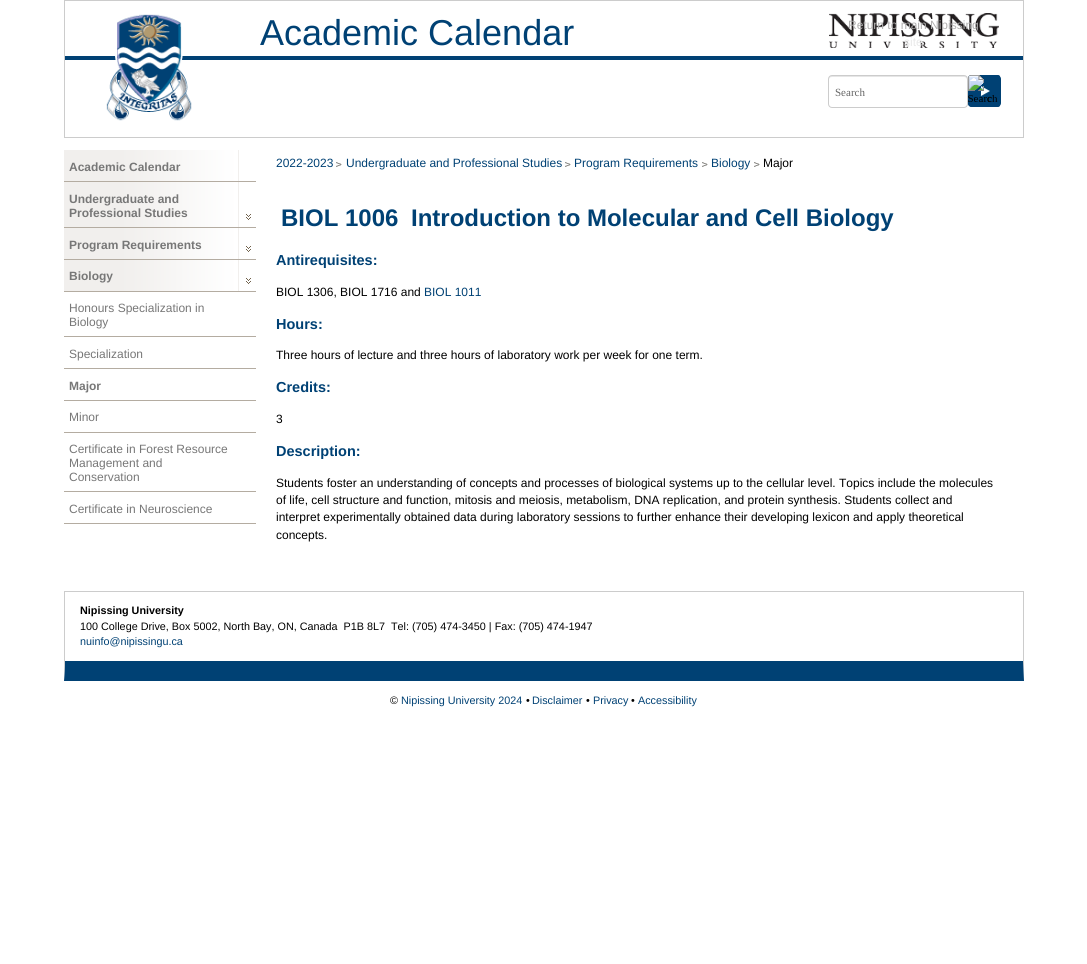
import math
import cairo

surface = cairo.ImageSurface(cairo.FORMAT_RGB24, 1087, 964)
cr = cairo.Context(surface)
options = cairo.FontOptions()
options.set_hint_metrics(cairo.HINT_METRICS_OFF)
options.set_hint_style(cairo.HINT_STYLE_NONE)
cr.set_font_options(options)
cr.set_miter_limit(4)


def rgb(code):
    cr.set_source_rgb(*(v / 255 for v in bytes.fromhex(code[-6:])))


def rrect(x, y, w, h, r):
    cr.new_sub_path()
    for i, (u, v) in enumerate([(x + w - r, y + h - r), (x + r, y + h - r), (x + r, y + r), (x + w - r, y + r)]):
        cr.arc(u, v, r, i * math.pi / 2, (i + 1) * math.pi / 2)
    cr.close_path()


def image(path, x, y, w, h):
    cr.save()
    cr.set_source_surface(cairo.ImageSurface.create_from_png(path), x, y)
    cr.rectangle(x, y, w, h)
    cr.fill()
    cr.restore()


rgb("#ffffff")
cr.paint()
cr.rectangle(64.5, 0.5, 959, 137)
rgb("#cccccc")
cr.set_line_width(1)
cr.stroke()
rgb("#004174")
cr.rectangle(65, 56, 958, 4)
cr.fill()
image("img/1.png", 106, 14, 86, 107)
image("img/2.png", 829, 13, 170, 35)
rgb("#e6e6e6")
cr.new_path()
cr.move_to(832, 77)
cr.line_to(964, 77)
cr.curve_to(966, 77, 967, 78, 967, 80)
cr.curve_to(967, 78, 967, 76, 965, 76)
cr.line_to(831, 76)
cr.curve_to(829, 76, 829, 78, 829, 80)
cr.curve_to(829, 78, 830, 77, 832, 77)
cr.close_path()
cr.fill()
rrect(828.5, 75.5, 139, 32, 3.5)
rgb("#cccccc")
cr.stroke()
rgb("#004174")
rrect(968, 75, 33, 32, 4)
cr.fill()
image("img/3.png", 968, 75, 32, 32)
image("img/4.png", 968, 75, 30, 27)
image("img/5.png", 64, 150, 175, 141)
rgb("#b4aca1")
cr.rectangle(64, 181, 192, 1)
cr.fill()
image("img/6.png", 246, 214, 5, 6)
cr.rectangle(64, 227, 192, 1)
cr.fill()
image("img/6.png", 246, 246, 5, 6)
cr.rectangle(64, 259, 192, 1)
cr.fill()
image("img/6.png", 246, 278, 5, 6)
for x, y, w, h, color in [
    (64, 291, 192, 1, "#b4aca1"),
    (64, 336, 192, 1, "#b4aca1"),
    (64, 368, 192, 1, "#b4aca1"),
    (64, 400, 192, 1, "#b4aca1"),
    (64, 432, 192, 1, "#b4aca1"),
    (64, 491, 192, 1, "#b4aca1"),
    (64, 523, 192, 1, "#b4aca1"),
]:
    rgb(color)
    cr.rectangle(x, y, w, h)
    cr.fill()
image("img/7.png", 336, 162, 6, 5)
image("img/7.png", 565, 162, 6, 5)
image("img/7.png", 702, 162, 6, 5)
image("img/7.png", 754, 162, 6, 5)
rgb("#cccccc")
cr.rectangle(64, 591, 960, 1)
cr.fill()
cr.new_path()
cr.move_to(1024, 591)
cr.line_to(1024, 681)
cr.line_to(1023, 661)
cr.line_to(1023, 592)
cr.close_path()
cr.fill()
rgb("#004174")
cr.new_path()
cr.move_to(1024, 681)
cr.line_to(64, 681)
cr.line_to(65, 661)
cr.line_to(1023, 661)
cr.close_path()
cr.fill()
rgb("#cccccc")
cr.new_path()
cr.move_to(64, 681)
cr.line_to(64, 591)
cr.line_to(65, 592)
cr.line_to(65, 661)
cr.close_path()
cr.fill()
cr.select_font_face("Liberation Sans")
cr.set_font_size(36)
rgb("#004174")
cr.move_to(260, 45)
cr.show_text("Academic Calendar")
cr.set_font_size(12)
rgb("#b1b0b0")
cr.move_to(848, 29)
cr.show_text("Return to main Nipissing")
rgb("#e9e9e9")
cr.move_to(904, 46)
cr.show_text("site")
cr.select_font_face("Liberation Serif")
cr.set_font_size(11)
rgb("#666666")
cr.move_to(835, 96)
cr.show_text("Search")
rgb("#000000")
cr.move_to(987, 102)
cr.show_text("c")
cr.select_font_face("Liberation Sans", cairo.FONT_SLANT_NORMAL, cairo.FONT_WEIGHT_BOLD)
cr.set_font_size(12)
rgb("#777777")
for x, y, s in [
    (69, 171, "Academic Calendar"),
    (69, 203, "Undergraduate and"),
    (69, 217, "Professional Studies"),
    (69, 249, "Program Requirements"),
    (69, 280, "Biology"),
]:
    cr.move_to(x, y)
    cr.show_text(s)
cr.select_font_face("Liberation Sans")
for x, y, s in [
    (69, 312, "Honours Specialization in"),
    (69, 326, "Biology"),
    (69, 358, "Specialization"),
]:
    cr.move_to(x, y)
    cr.show_text(s)
cr.select_font_face("Liberation Sans", cairo.FONT_SLANT_NORMAL, cairo.FONT_WEIGHT_BOLD)
cr.move_to(69, 390)
cr.show_text("Major")
cr.select_font_face("Liberation Sans")
for x, y, s in [
    (69, 421, "Minor"),
    (69, 453, "Certificate in Forest Resource"),
    (69, 467, "Management and"),
    (69, 481, "Conservation"),
    (69, 513, "Certificate in Neuroscience"),
]:
    cr.move_to(x, y)
    cr.show_text(s)
rgb("#004174")
for x, y, s in [
    (276, 167, "2022-2023"),
    (346, 167, "Undergraduate and Professional Studies"),
    (574, 167, "Program Requirements"),
    (711, 167, "Biology"),
]:
    cr.move_to(x, y)
    cr.show_text(s)
rgb("#000000")
cr.move_to(763, 167)
cr.show_text("Major")
cr.select_font_face("Liberation Sans", cairo.FONT_SLANT_NORMAL, cairo.FONT_WEIGHT_BOLD)
cr.set_font_size(24)
rgb("#004174")
cr.move_to(281, 226)
cr.show_text("BIOL 1006")
cr.move_to(411, 226)
cr.show_text("Introduction to Molecular and Cell Biology")
cr.set_font_size(14.5)
cr.move_to(276, 265)
cr.show_text("Antirequisites:")
cr.select_font_face("Liberation Sans")
cr.set_font_size(12)
rgb("#000000")
cr.move_to(276, 296)
cr.show_text("BIOL 1306, BIOL 1716 and")
rgb("#004174")
cr.move_to(424, 296)
cr.show_text("BIOL 1011")
cr.select_font_face("Liberation Sans", cairo.FONT_SLANT_NORMAL, cairo.FONT_WEIGHT_BOLD)
cr.set_font_size(14.5)
cr.move_to(276, 329)
cr.show_text("Hours:")
cr.select_font_face("Liberation Sans")
cr.set_font_size(12)
rgb("#000000")
cr.move_to(276, 359)
cr.show_text("Three hours of lecture and three hours of laboratory work per week for one term.")
cr.select_font_face("Liberation Sans", cairo.FONT_SLANT_NORMAL, cairo.FONT_WEIGHT_BOLD)
cr.set_font_size(14.5)
rgb("#004174")
cr.move_to(276, 392)
cr.show_text("Credits:")
cr.select_font_face("Liberation Sans")
cr.set_font_size(12)
rgb("#000000")
cr.move_to(276, 423)
cr.show_text("3")
cr.select_font_face("Liberation Sans", cairo.FONT_SLANT_NORMAL, cairo.FONT_WEIGHT_BOLD)
cr.set_font_size(14.5)
rgb("#004174")
cr.move_to(276, 456)
cr.show_text("Description:")
cr.select_font_face("Liberation Sans")
cr.set_font_size(12)
rgb("#000000")
for x, y, s in [
    (276, 487, "Students foster an understanding of concepts and processes of biological systems up to the cellular level. Topics include the molecules"),
    (276, 504, "of life, cell structure and function, mitosis and meiosis, metabolism, DNA replication, and protein synthesis. Students collect and"),
    (276, 521, "interpret experimentally obtained data during laboratory sessions to further enhance their developing lexicon and apply theoretical"),
    (276, 539, "concepts."),
]:
    cr.move_to(x, y)
    cr.show_text(s)
cr.select_font_face("Liberation Sans", cairo.FONT_SLANT_NORMAL, cairo.FONT_WEIGHT_BOLD)
cr.set_font_size(10.8)
cr.move_to(80, 614)
cr.show_text("Nipissing University")
cr.select_font_face("Liberation Sans")
cr.move_to(80, 630)
cr.show_text("100 College Drive, Box 5002, North Bay, ON, Canada  P1B 8L7  Tel: (705) 474-3450 | Fax: (705) 474-1947")
rgb("#004174")
cr.move_to(80, 645)
cr.show_text("nuinfo@nipissingu.ca")
rgb("#000000")
cr.move_to(390, 704)
cr.show_text("©")
rgb("#004174")
cr.move_to(401, 704)
cr.show_text("Nipissing University 2024")
rgb("#000000")
cr.move_to(526, 704)
cr.show_text("•")
rgb("#004174")
cr.move_to(532, 704)
cr.show_text("Disclaimer")
rgb("#000000")
cr.move_to(586, 704)
cr.show_text("•")
rgb("#004174")
cr.move_to(593, 704)
cr.show_text("Privacy")
rgb("#000000")
cr.move_to(631, 704)
cr.show_text("•")
rgb("#004174")
cr.move_to(638, 704)
cr.show_text("Accessibility")
surface.write_to_png("page.png")
